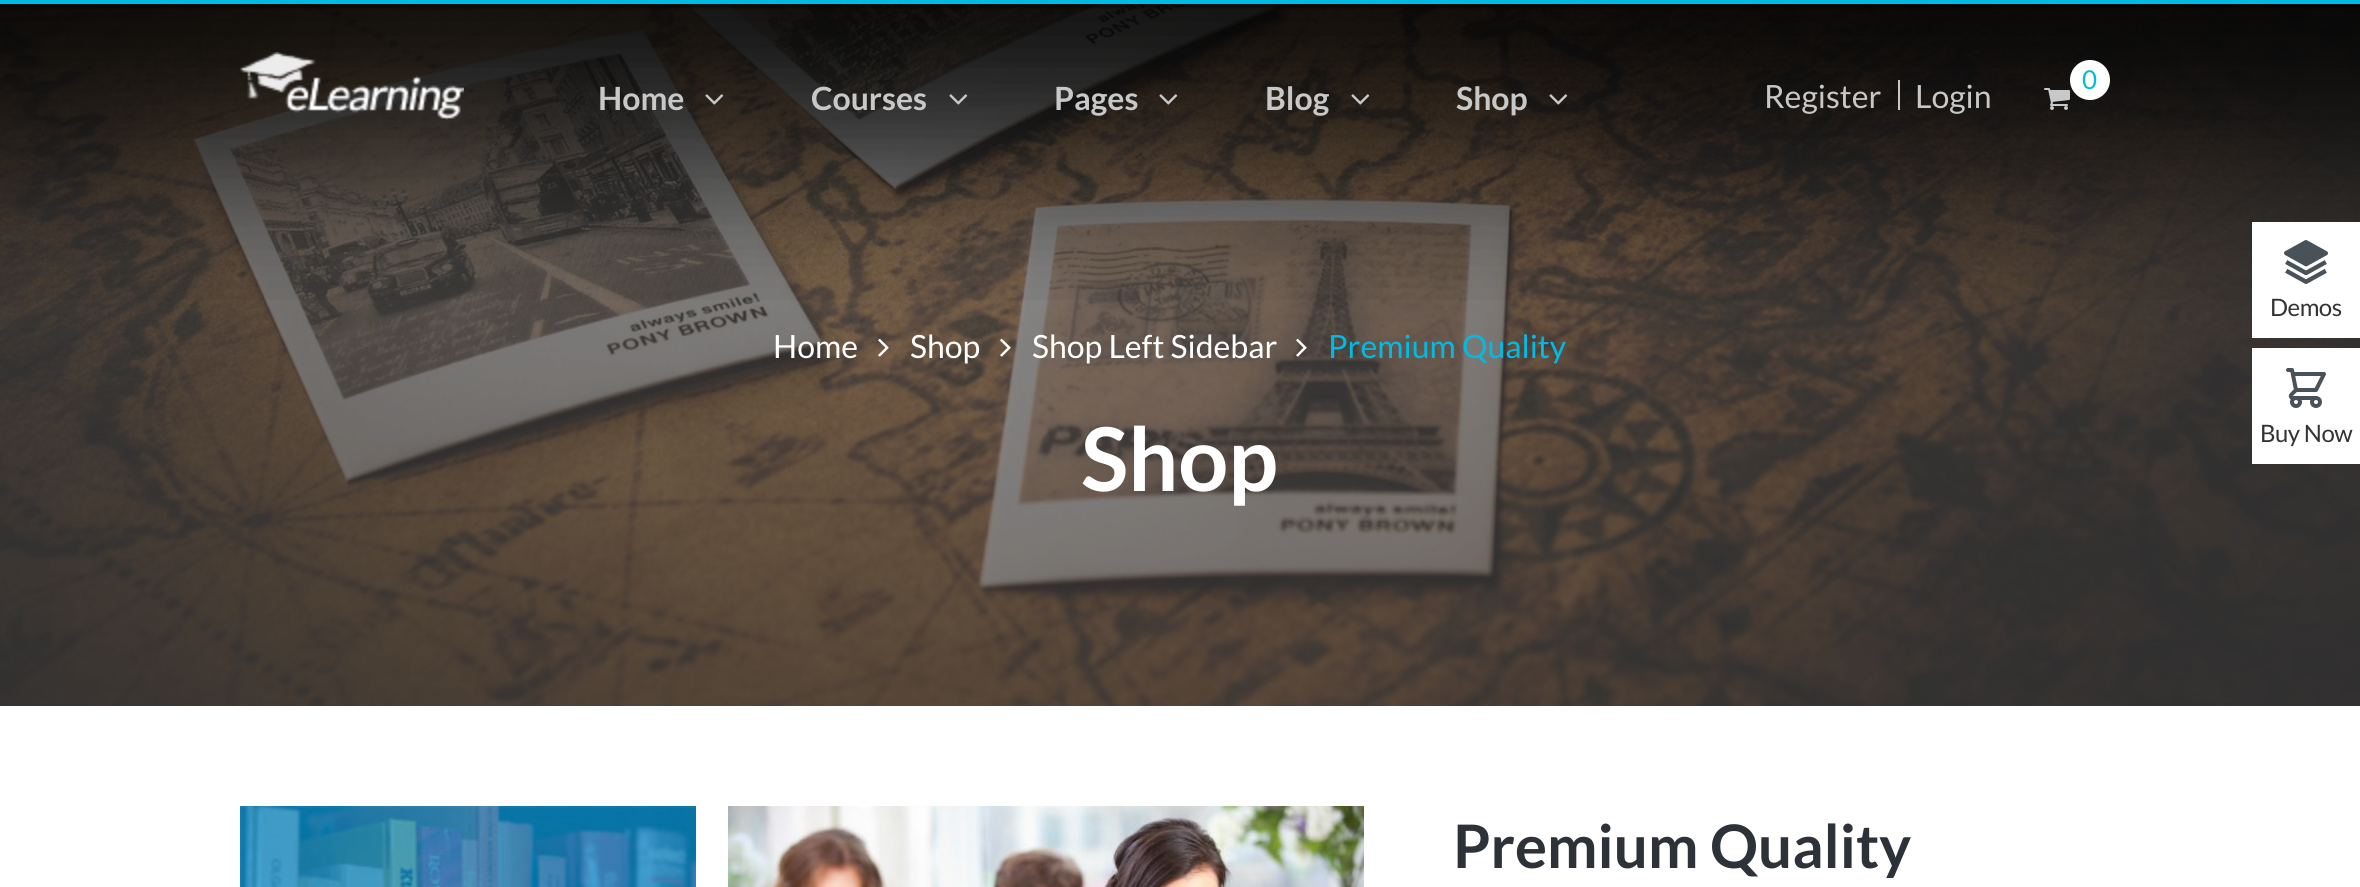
import math
import cairo

surface = cairo.ImageSurface(cairo.FORMAT_RGB24, 2360, 887)
cr = cairo.Context(surface)
options = cairo.FontOptions()
options.set_hint_metrics(cairo.HINT_METRICS_OFF)
options.set_hint_style(cairo.HINT_STYLE_NONE)
cr.set_font_options(options)
cr.set_miter_limit(4)


def rgb(code):
    cr.set_source_rgb(*(v / 255 for v in bytes.fromhex(code[-6:])))


def tracked(x, y, s, letter, word):
    cr.move_to(x, y)
    for ch in s:
        cr.show_text(ch)
        cr.rel_move_to(letter + word * (ch == ' '), 0)


def image(path, x, y, w, h):
    cr.save()
    cr.set_source_surface(cairo.ImageSurface.create_from_png(path), x, y)
    cr.rectangle(x, y, w, h)
    cr.fill()
    cr.restore()


rgb("#ffffff")
cr.paint()
rgb("#00bce4")
cr.rectangle(0, 0, 2360, 4)
cr.fill()
image("img/9.png", 0, 4, 2360, 702)
image("img/1.png", 0, 4, 2360, 296)
image("img/2.png", 240, 52, 224, 68)
image("img/3.png", 705, 94, 19, 11)
image("img/4.png", 949, 94, 19, 11)
image("img/5.png", 1159, 94, 19, 11)
image("img/6.png", 1351, 94, 19, 11)
image("img/7.png", 1549, 94, 19, 11)
rgb("#ffffff")
cr.arc(2090, 80, 20, 0, 2 * math.pi)
cr.fill()
image("img/8.png", 2044, 88, 26, 22)
rgb("#c8c8c8")
cr.rectangle(1898, 80, 2, 30)
cr.fill()
image("img/10.png", 878, 338, 11, 19)
image("img/11.png", 1000, 338, 11, 19)
image("img/12.png", 1296, 338, 11, 19)
image("img/13.png", 240, 806, 456, 81)
image("img/14.png", 728, 806, 636, 81)
rgb("#ffffff")
cr.rectangle(2252, 222, 108, 116)
cr.fill()
image("img/15.png", 2284, 240, 44, 44)
cr.rectangle(2252, 348, 108, 116)
cr.fill()
image("img/16.png", 2286, 368, 40, 40)
cr.select_font_face("Lato", cairo.FONT_SLANT_NORMAL, cairo.FONT_WEIGHT_BOLD)
cr.set_font_size(32)
rgb("#c8c8c8")
for x, y, s in [
    (598, 110, "Home"),
    (811, 110, "Courses"),
    (1054, 110, "Pages"),
    (1265, 110, "Blog"),
    (1456, 110, "Shop"),
]:
    cr.move_to(x, y)
    cr.show_text(s)
cr.select_font_face("Lato")
cr.set_font_size(26)
rgb("#00bce4")
cr.move_to(2082, 89)
cr.show_text("0")
cr.set_font_size(32)
rgb("#c8c8c8")
cr.move_to(1764, 108)
cr.show_text("Register")
cr.move_to(1915, 108)
cr.show_text("Login")
rgb("#ffffff")
for x, y, s in [
    (773, 358, "Home"),
    (910, 358, "Shop"),
    (1032, 358, "Shop Left Sidebar"),
]:
    cr.move_to(x, y)
    cr.show_text(s)
rgb("#00bce4")
cr.move_to(1328, 358)
cr.show_text("Premium Quality")
cr.select_font_face("Lato", cairo.FONT_SLANT_NORMAL, cairo.FONT_WEIGHT_BOLD)
cr.set_font_size(88)
rgb("#ffffff")
cr.move_to(1081, 491)
cr.show_text("Shop")
cr.set_font_size(60)
rgb("#2c3238")
cr.move_to(1453, 868)
cr.show_text("Premium Quality")
cr.select_font_face("Lato")
cr.set_font_size(24)
rgb("#333333")
tracked(2270, 316, "Demos", -0.5, 0)
tracked(2260, 442, "Buy Now", -0.5, 0)
surface.write_to_png("page.png")
